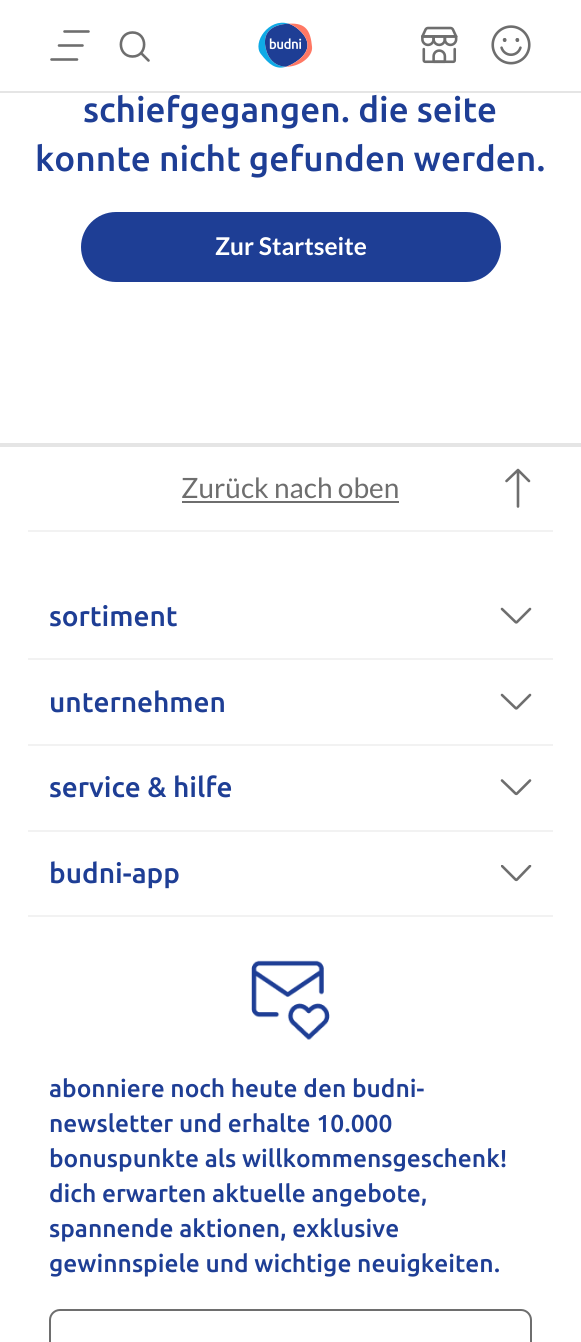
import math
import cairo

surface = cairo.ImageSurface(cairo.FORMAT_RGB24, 581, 1342)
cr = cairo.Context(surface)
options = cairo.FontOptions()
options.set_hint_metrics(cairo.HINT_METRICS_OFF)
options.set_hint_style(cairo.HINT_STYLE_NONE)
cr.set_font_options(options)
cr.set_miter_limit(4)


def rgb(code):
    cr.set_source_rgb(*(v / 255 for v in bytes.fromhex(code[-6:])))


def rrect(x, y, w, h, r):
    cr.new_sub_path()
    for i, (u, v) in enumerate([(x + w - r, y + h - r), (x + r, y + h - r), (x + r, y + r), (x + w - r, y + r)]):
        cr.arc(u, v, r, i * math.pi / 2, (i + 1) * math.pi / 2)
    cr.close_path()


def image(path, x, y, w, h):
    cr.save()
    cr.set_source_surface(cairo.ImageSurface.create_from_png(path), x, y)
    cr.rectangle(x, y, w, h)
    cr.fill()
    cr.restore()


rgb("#ffffff")
cr.paint()
rgb("#e5e5e5")
cr.rectangle(0, 91, 581, 2)
cr.fill()
cr.new_path()
cr.move_to(88.5, 31.5)
cr.line_to(64.5, 31.5)
cr.move_to(82.5, 45.5)
cr.line_to(59, 45.5)
cr.move_to(77, 59.5)
cr.line_to(51.5, 59.5)
rgb("#6e6e6e")
cr.set_line_width(2.6)
cr.set_line_cap(cairo.LINE_CAP_ROUND)
cr.set_line_join(cairo.LINE_JOIN_ROUND)
cr.stroke()
cr.new_path()
cr.move_to(132.5, 56.5)
cr.curve_to(148, 56.5, 148, 32.5, 132.5, 32.5)
cr.curve_to(117, 32.5, 117, 56.5, 132.5, 56.5)
cr.close_path()
cr.move_to(148.5, 60.5)
cr.line_to(141, 53)
cr.stroke()
image("img/1.png", 258, 22, 55, 46)
image("img/2.png", 421, 26, 37, 38)
image("img/3.png", 491, 25, 40, 40)
rgb("#1e3e95")
rrect(81, 212, 420, 70, 35)
cr.fill()
rgb("#e5e5e5")
cr.rectangle(0, 443, 581, 4)
cr.fill()
rgb("#6e6e6e")
cr.rectangle(182, 501, 217, 2)
cr.fill()
cr.new_path()
cr.move_to(518, 506.5)
cr.line_to(518, 470)
cr.move_to(506.5, 481)
cr.line_to(518, 470)
cr.line_to(529, 481)
cr.stroke()
rgb("#f2f2f2")
cr.rectangle(28, 530, 525, 2)
cr.fill()
cr.new_path()
cr.move_to(502, 609)
cr.line_to(515.5, 622)
cr.curve_to(516, 622.5, 516.5, 622.5, 517, 622)
cr.line_to(530, 609)
rgb("#6e6e6e")
cr.stroke()
rgb("#f2f2f2")
cr.rectangle(28, 658, 525, 2)
cr.fill()
cr.new_path()
cr.move_to(502, 695)
cr.line_to(515.5, 708)
cr.curve_to(516, 708.5, 516.5, 708.5, 517, 708)
cr.line_to(530, 695)
rgb("#6e6e6e")
cr.stroke()
rgb("#f2f2f2")
cr.rectangle(28, 744, 525, 2)
cr.fill()
cr.new_path()
cr.move_to(502, 780.5)
cr.line_to(515.5, 793.5)
cr.curve_to(516, 794, 516.5, 794, 517, 793.5)
cr.line_to(530, 780.5)
rgb("#6e6e6e")
cr.stroke()
rgb("#f2f2f2")
cr.rectangle(28, 830, 525, 2)
cr.fill()
cr.save()
cr.rectangle(501, 865, 31, 17)
cr.clip()
cr.new_path()
cr.move_to(502, 866)
cr.line_to(515.5, 879.5)
cr.curve_to(516, 880, 516.5, 880, 517, 879.5)
cr.line_to(530, 866)
rgb("#6e6e6e")
cr.stroke()
cr.restore()
cr.rectangle(28, 915, 525, 2)
cr.fill()
image("img/4.png", 251, 960, 79, 80)
rrect(50, 1310, 481, 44, 10)
rgb("#6e6e6e")
cr.set_line_width(2)
cr.set_line_cap(cairo.LINE_CAP_BUTT)
cr.set_line_join(cairo.LINE_JOIN_MITER)
cr.stroke()
cr.select_font_face("Ubuntu Medium")
cr.set_font_size(35)
rgb("#1e3e95")
cr.move_to(83, 122)
cr.show_text("schiefgegangen. die seite")
cr.move_to(35, 171)
cr.show_text("konnte nicht gefunden werden.")
cr.select_font_face("Lato", cairo.FONT_SLANT_NORMAL, cairo.FONT_WEIGHT_BOLD)
cr.set_font_size(24.5)
rgb("#ffffff")
cr.move_to(215, 255)
cr.show_text("Zur Startseite")
cr.select_font_face("Lato")
cr.set_font_size(28)
rgb("#6e6e6e")
cr.move_to(181, 498)
cr.show_text("Zurück nach oben")
cr.select_font_face("Ubuntu Medium")
rgb("#1e3e95")
for x, y, s in [
    (49, 626, "sortiment"),
    (49, 712, "unternehmen"),
    (49, 797, "service & hilfe"),
    (49, 883, "budni-app"),
]:
    cr.move_to(x, y)
    cr.show_text(s)
cr.set_font_size(24.5)
for x, y, s in [
    (49, 1097, "abonniere noch heute den budni-"),
    (49, 1132, "newsletter und erhalte 10.000"),
    (49, 1167, "bonuspunkte als willkommensgeschenk!"),
    (49, 1202, "dich erwarten aktuelle angebote,"),
    (49, 1237, "spannende aktionen, exklusive"),
    (49, 1272, "gewinnspiele und wichtige neuigkeiten."),
]:
    cr.move_to(x, y)
    cr.show_text(s)
surface.write_to_png("page.png")
